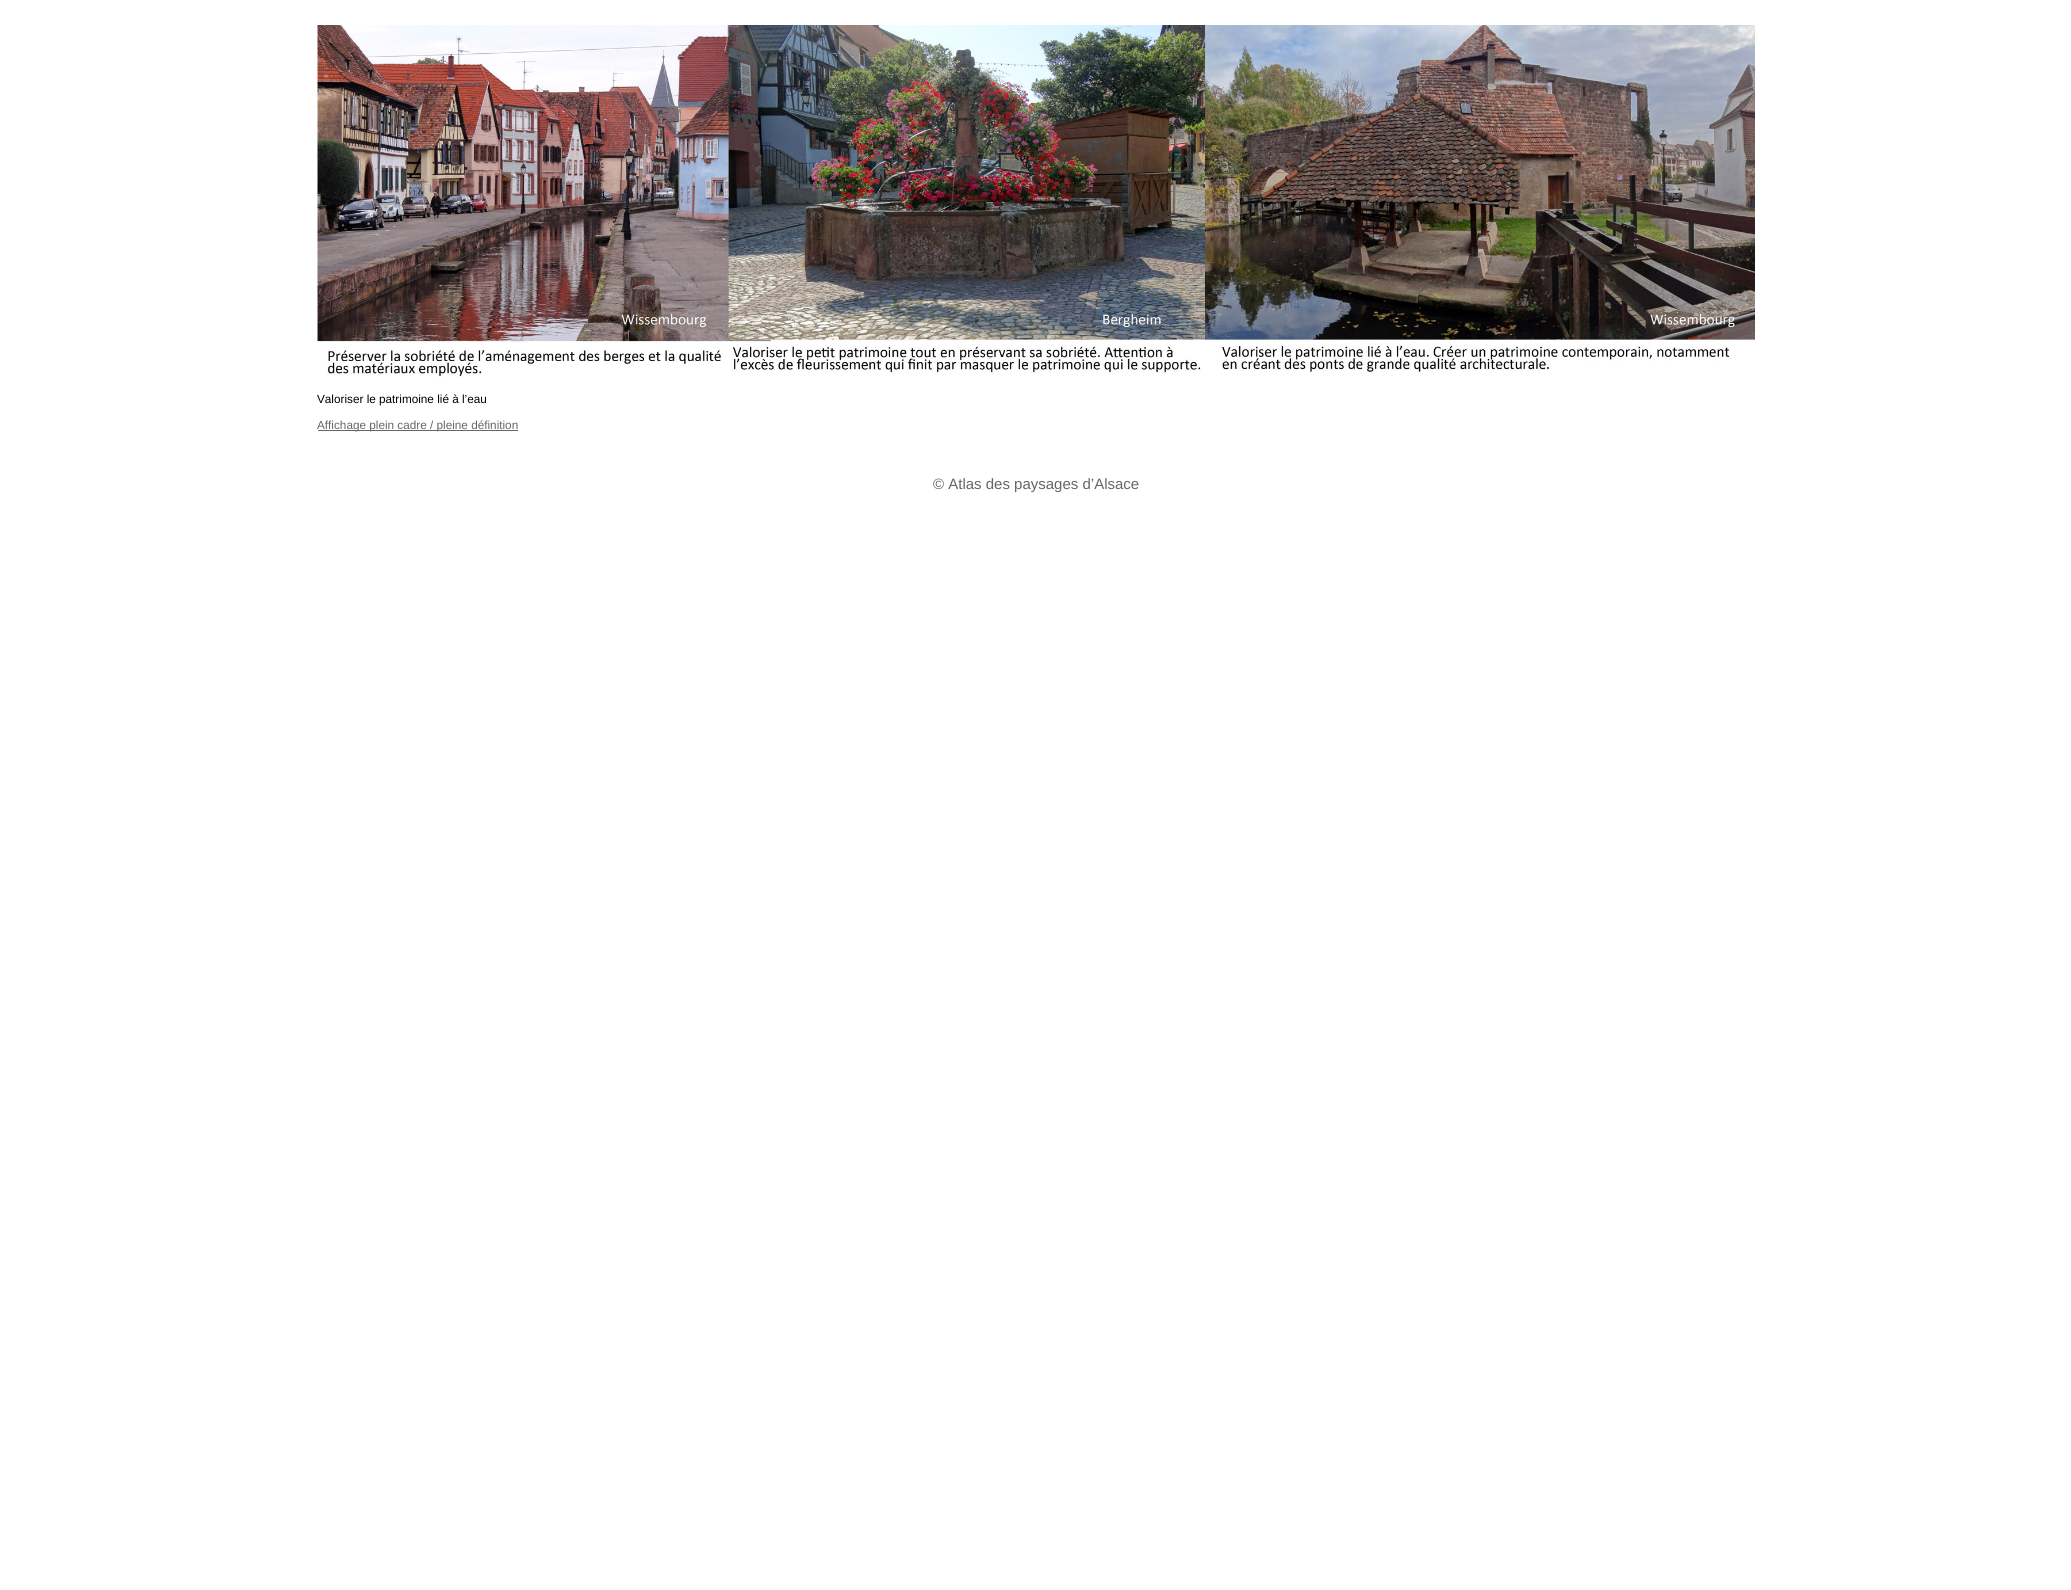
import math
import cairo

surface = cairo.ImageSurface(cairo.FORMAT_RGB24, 2071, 1590)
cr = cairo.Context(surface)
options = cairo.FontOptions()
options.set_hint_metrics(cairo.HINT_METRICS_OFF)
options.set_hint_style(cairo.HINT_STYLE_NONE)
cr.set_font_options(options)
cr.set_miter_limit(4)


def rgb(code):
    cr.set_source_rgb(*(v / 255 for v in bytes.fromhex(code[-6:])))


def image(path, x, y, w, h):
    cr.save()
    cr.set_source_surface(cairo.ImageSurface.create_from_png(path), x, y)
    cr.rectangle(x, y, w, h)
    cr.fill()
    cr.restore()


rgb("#ffffff")
cr.paint()
image("img/1.png", 317, 25, 1438, 353)
rgb("#666666")
cr.rectangle(318, 430, 200, 1)
cr.fill()
cr.select_font_face("Liberation Sans")
cr.set_font_size(11.75)
rgb("#000000")
cr.move_to(317, 403)
cr.show_text("Valoriser le patrimoine lié à l’eau")
rgb("#666666")
cr.move_to(317, 429)
cr.show_text("Affichage plein cadre / pleine définition")
cr.set_font_size(15)
cr.move_to(933, 489)
cr.show_text("© Atlas des paysages d’Alsace")
surface.write_to_png("page.png")
